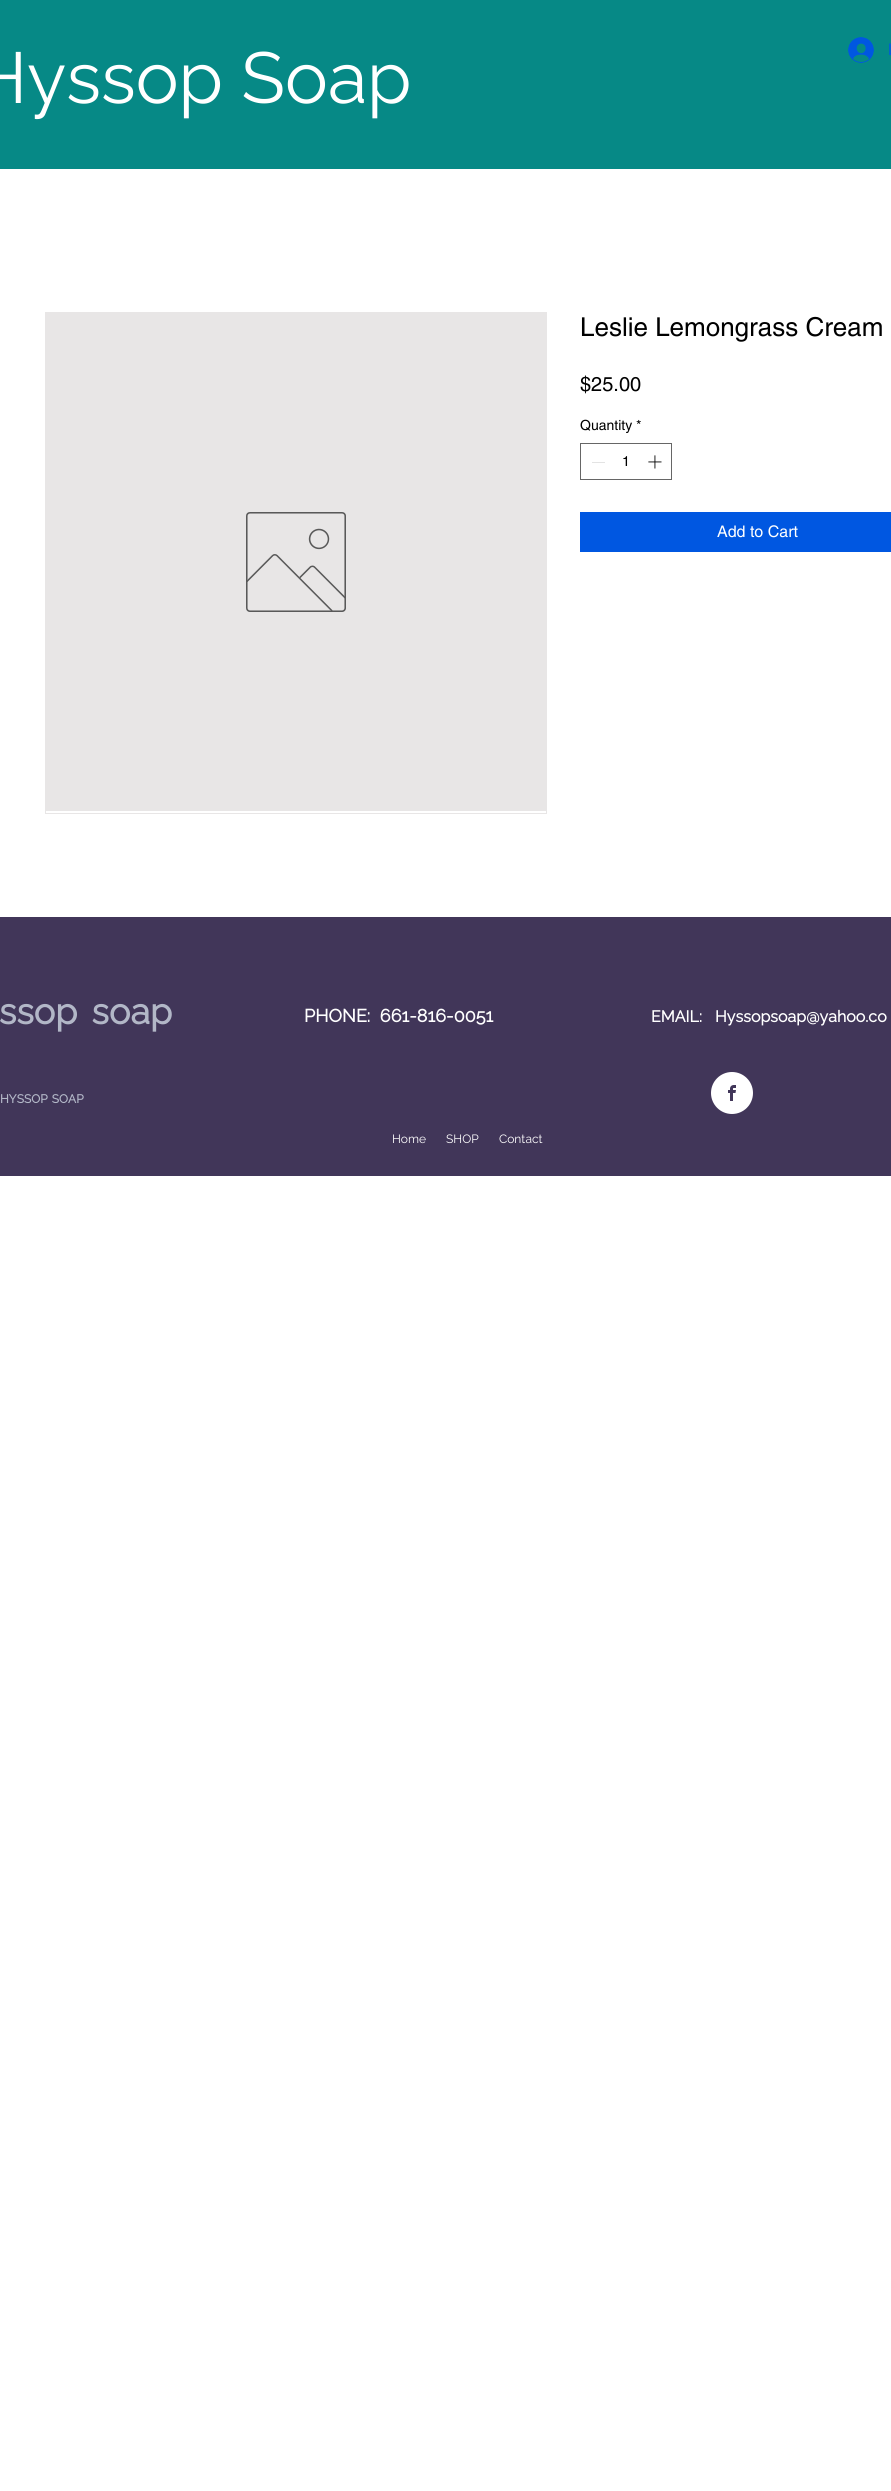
import math
import cairo

surface = cairo.ImageSurface(cairo.FORMAT_RGB24, 891, 2491)
cr = cairo.Context(surface)
options = cairo.FontOptions()
options.set_hint_metrics(cairo.HINT_METRICS_OFF)
options.set_hint_style(cairo.HINT_STYLE_NONE)
cr.set_font_options(options)
cr.set_miter_limit(4)


def rgb(code):
    cr.set_source_rgb(*(v / 255 for v in bytes.fromhex(code[-6:])))


def tracked(x, y, s, letter, word):
    cr.move_to(x, y)
    for ch in s:
        cr.show_text(ch)
        cr.rel_move_to(letter + word * (ch == ' '), 0)


def image(path, x, y, w, h):
    cr.save()
    cr.set_source_surface(cairo.ImageSurface.create_from_png(path), x, y)
    cr.rectangle(x, y, w, h)
    cr.fill()
    cr.restore()


rgb("#ffffff")
cr.paint()
rgb("#068986")
cr.rectangle(0, 0, 891, 169)
cr.fill()
image("img/1.png", 848, 37, 26, 26)
cr.rectangle(45.5, 312.5, 501, 501)
rgb("#e8e6e6")
cr.set_line_width(1)
cr.stroke()
cr.rectangle(46, 313, 500, 498)
cr.fill()
image("img/2.png", 246, 512, 100, 100)
cr.rectangle(580.5, 443.5, 91, 36)
rgb("#666666")
cr.stroke()
rgb("#e3e3e3")
cr.rectangle(592, 462, 13, 1)
cr.fill()
image("img/3.png", 648, 455, 14, 14)
rgb("#0057e1")
cr.rectangle(580, 512, 311, 40)
cr.fill()
rgb("#413659")
cr.rectangle(0, 917, 891, 259)
cr.fill()
rgb("#ffffff")
cr.arc(732, 1093, 21, 0, 2 * math.pi)
cr.fill()
image("img/4.png", 728, 1085, 8, 16)
cr.select_font_face("helvetica")
cr.set_font_size(16)
rgb("#0057e1")
cr.move_to(888, 55)
cr.show_text("L")
cr.select_font_face("Raleway")
cr.set_font_size(72)
rgb("#ffffff")
cr.move_to(-26, 103)
cr.show_text("Hyssop Soap")
cr.select_font_face("helvetica")
cr.set_font_size(26)
rgb("#000000")
cr.move_to(580, 336)
cr.show_text("Leslie Lemongrass Cream")
cr.set_font_size(20)
cr.move_to(580, 391)
cr.show_text("$25.00")
cr.set_font_size(14)
cr.move_to(580, 430)
cr.show_text("Quantity *")
cr.move_to(622, 466)
cr.show_text("1")
cr.set_font_size(16)
rgb("#ffffff")
cr.move_to(717, 537)
cr.show_text("Add to Cart")
cr.select_font_face("Raleway", cairo.FONT_SLANT_NORMAL, cairo.FONT_WEIGHT_BOLD)
cr.set_font_size(36)
rgb("#b2b7c7")
tracked(-1, 1024, "ssop soap", 0, 5)
cr.set_font_size(18)
rgb("#ffffff")
tracked(304, 1022, "PHONE: 661-816-0051", 0, 5)
cr.set_font_size(16)
cr.move_to(651, 1022)
cr.show_text("EMAIL:")
cr.move_to(715, 1022)
cr.show_text("Hyssopsoap@yahoo.co")
cr.set_font_size(12)
rgb("#b2b7c7")
tracked(0, 1103, "HYSSOP SOAP", 0, 1)
cr.select_font_face("Raleway")
rgb("#ffffff")
for x, y, s in [
    (392, 1143, "Home"),
    (446, 1143, "SHOP"),
    (499, 1143, "Contact"),
]:
    cr.move_to(x, y)
    cr.show_text(s)
surface.write_to_png("page.png")
